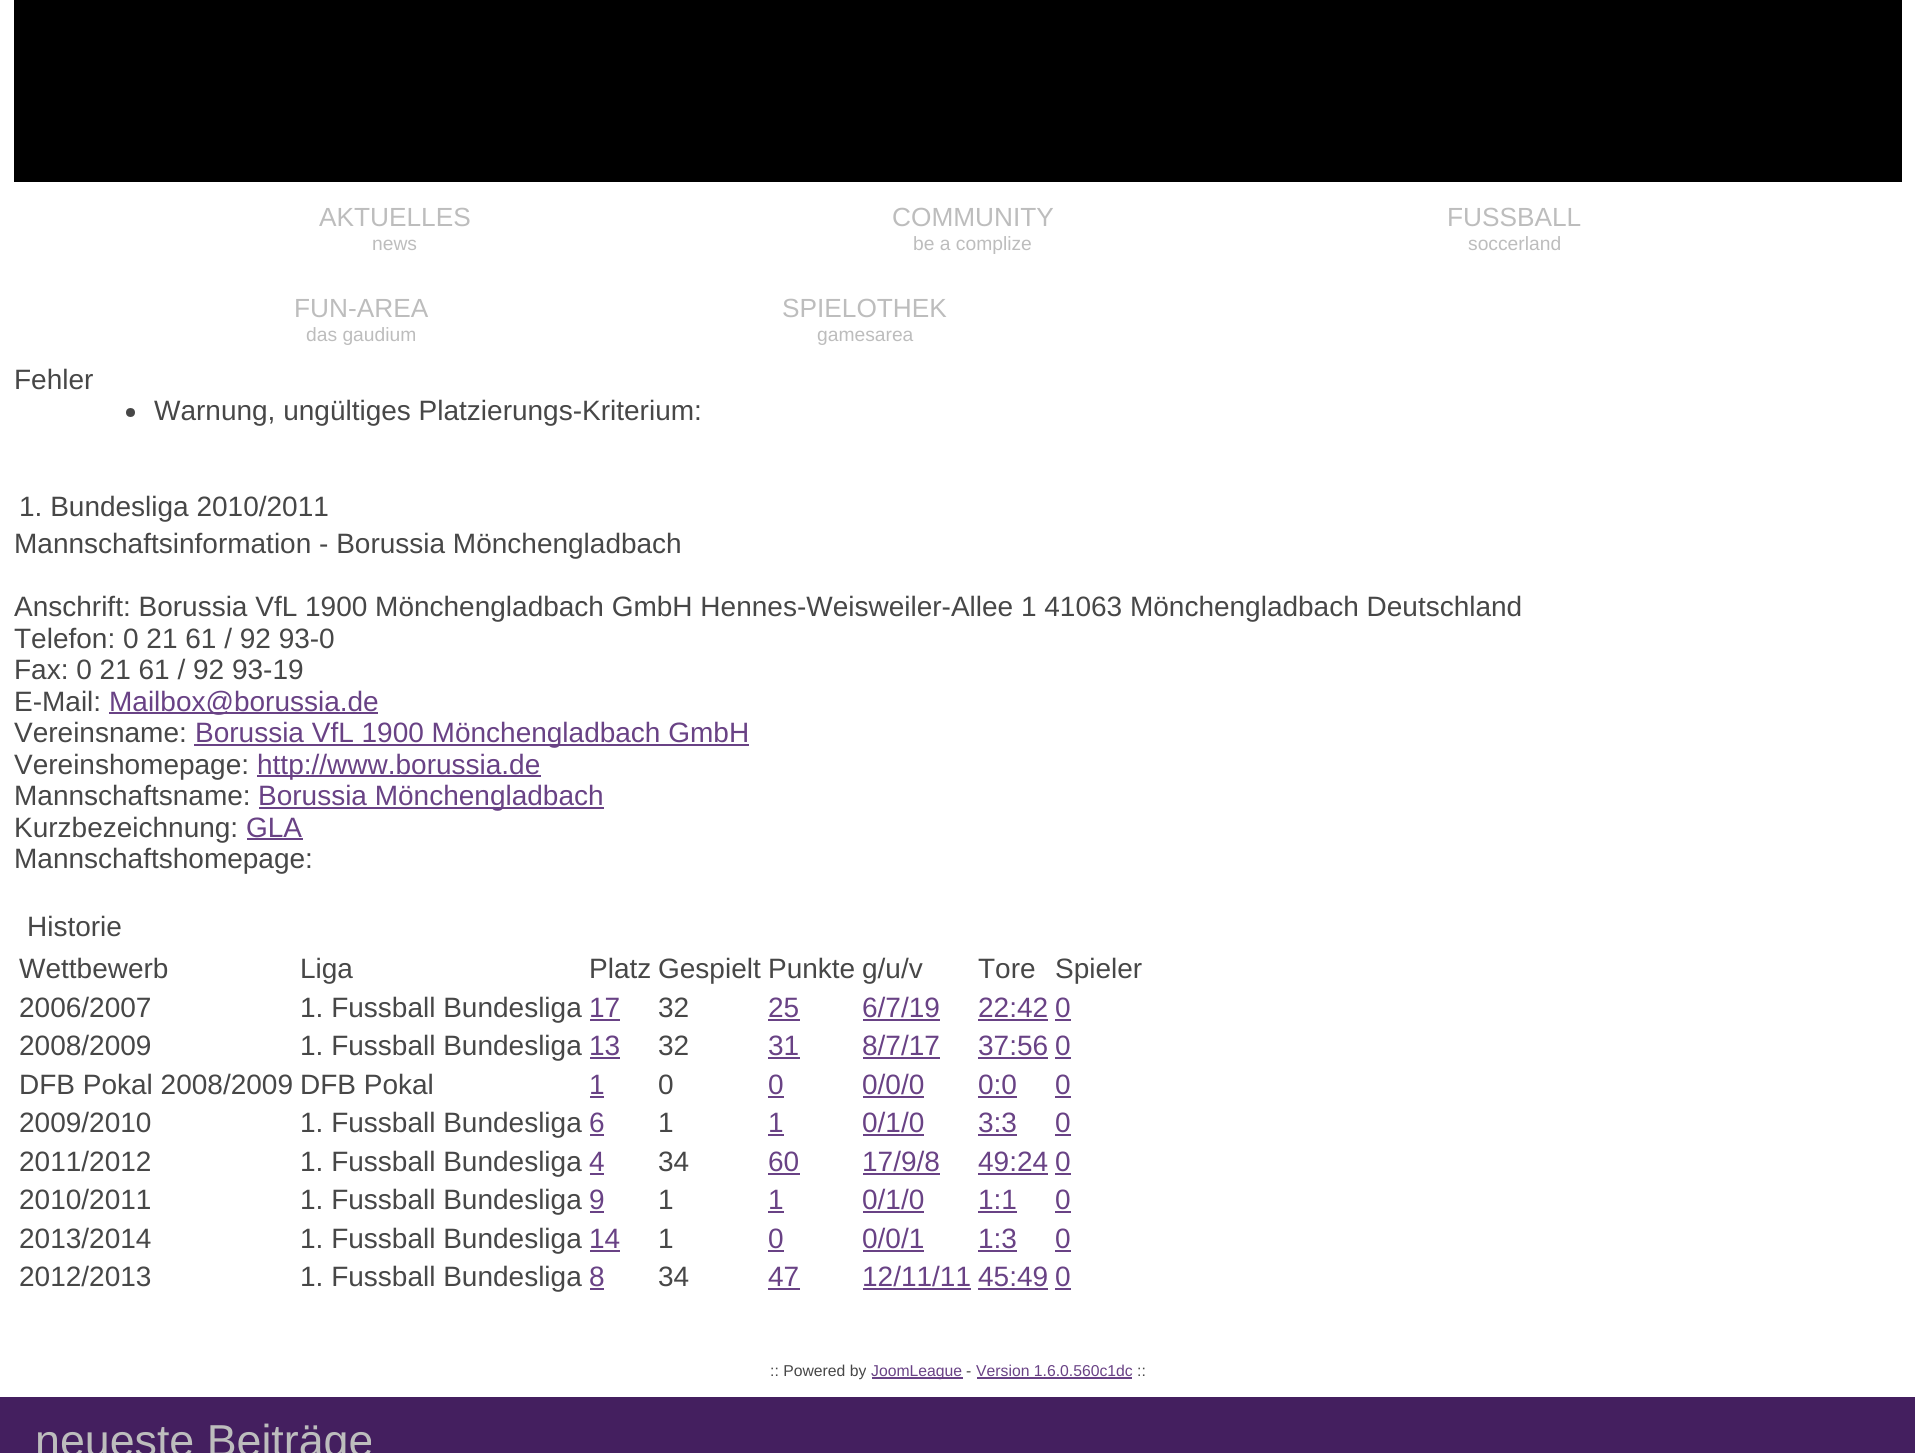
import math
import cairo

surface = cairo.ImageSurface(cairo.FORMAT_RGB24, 1915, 1453)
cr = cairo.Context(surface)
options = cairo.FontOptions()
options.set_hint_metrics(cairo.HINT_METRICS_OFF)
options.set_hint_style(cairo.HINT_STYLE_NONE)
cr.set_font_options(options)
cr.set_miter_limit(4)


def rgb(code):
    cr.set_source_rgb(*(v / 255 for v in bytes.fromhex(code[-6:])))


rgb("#ffffff")
cr.paint()
rgb("#000000")
cr.rectangle(14, 0, 1888, 182)
cr.fill()
rgb("#474747")
cr.arc(130.5, 412.5, 4.5, 0, 2 * math.pi)
cr.fill()
for x, y, w, h, color in [
    (109, 712, 269, 2, "#694285"),
    (194, 744, 555, 2, "#694285"),
    (257, 775, 284, 2, "#694285"),
    (259, 807, 345, 2, "#694285"),
    (247, 838, 56, 2, "#694285"),
    (590, 1019, 30, 2, "#694285"),
    (768, 1019, 32, 2, "#694285"),
    (863, 1019, 77, 2, "#694285"),
    (978, 1019, 70, 2, "#694285"),
    (1055, 1019, 16, 2, "#694285"),
    (590, 1057, 30, 2, "#694285"),
    (768, 1057, 32, 2, "#694285"),
    (863, 1057, 77, 2, "#694285"),
    (978, 1057, 70, 2, "#694285"),
    (1055, 1057, 16, 2, "#694285"),
    (590, 1096, 14, 2, "#694285"),
    (768, 1096, 16, 2, "#694285"),
    (863, 1096, 61, 2, "#694285"),
    (978, 1096, 39, 2, "#694285"),
    (1055, 1096, 16, 2, "#694285"),
    (590, 1134, 14, 2, "#694285"),
    (768, 1134, 16, 2, "#694285"),
    (863, 1134, 61, 2, "#694285"),
    (978, 1134, 39, 2, "#694285"),
    (1055, 1134, 16, 2, "#694285"),
    (590, 1173, 14, 2, "#694285"),
    (768, 1173, 32, 2, "#694285"),
    (863, 1173, 77, 2, "#694285"),
    (978, 1173, 70, 2, "#694285"),
    (1055, 1173, 16, 2, "#694285"),
    (590, 1211, 14, 2, "#694285"),
    (768, 1211, 16, 2, "#694285"),
    (863, 1211, 61, 2, "#694285"),
    (978, 1211, 39, 2, "#694285"),
    (1055, 1211, 16, 2, "#694285"),
    (590, 1250, 30, 2, "#694285"),
    (768, 1250, 16, 2, "#694285"),
    (863, 1250, 61, 2, "#694285"),
    (978, 1250, 39, 2, "#694285"),
    (1055, 1250, 16, 2, "#694285"),
    (590, 1288, 14, 2, "#694285"),
    (768, 1288, 32, 2, "#694285"),
    (863, 1288, 108, 2, "#694285"),
    (978, 1288, 70, 2, "#694285"),
    (1055, 1288, 16, 2, "#694285"),
    (872, 1377, 91, 2, "#694285"),
    (977, 1377, 155, 2, "#694285"),
    (0, 1397, 1915, 56, "#441f5f"),
]:
    rgb(color)
    cr.rectangle(x, y, w, h)
    cr.fill()
cr.select_font_face("Liberation Sans")
cr.set_font_size(26.25)
rgb("#bdbdbd")
cr.move_to(319, 226)
cr.show_text("AKTUELLES")
cr.set_font_size(19.25)
cr.move_to(372, 250)
cr.show_text("news")
cr.set_font_size(26.25)
cr.move_to(892, 226)
cr.show_text("COMMUNITY")
cr.set_font_size(19.25)
cr.move_to(913, 250)
cr.show_text("be a complize")
cr.set_font_size(26.25)
cr.move_to(1447, 226)
cr.show_text("FUSSBALL")
cr.set_font_size(19.25)
cr.move_to(1468, 250)
cr.show_text("soccerland")
cr.set_font_size(26.25)
cr.move_to(294, 317)
cr.show_text("FUN-AREA")
cr.set_font_size(19.25)
cr.move_to(306, 341)
cr.show_text("das gaudium")
cr.set_font_size(26.25)
cr.move_to(782, 317)
cr.show_text("SPIELOTHEK")
cr.set_font_size(19.25)
cr.move_to(817, 341)
cr.show_text("gamesarea")
cr.set_font_size(28)
rgb("#474747")
for x, y, s in [
    (14, 389, "Fehler"),
    (154, 420, "Warnung, ungültiges Platzierungs-Kriterium:"),
    (19, 516, "1. Bundesliga 2010/2011"),
    (14, 553, "Mannschaftsinformation - Borussia Mönchengladbach"),
    (14, 616, "Anschrift: Borussia VfL 1900 Mönchengladbach GmbH Hennes-Weisweiler-Allee 1 41063 Mönchengladbach Deutschland"),
    (14, 648, "Telefon: 0 21 61 / 92 93-0"),
    (14, 679, "Fax: 0 21 61 / 92 93-19"),
    (14, 711, "E-Mail:"),
]:
    cr.move_to(x, y)
    cr.show_text(s)
rgb("#694285")
cr.move_to(109, 711)
cr.show_text("Mailbox@borussia.de")
rgb("#474747")
cr.move_to(14, 742)
cr.show_text("Vereinsname:")
rgb("#694285")
cr.move_to(195, 742)
cr.show_text("Borussia VfL 1900 Mönchengladbach GmbH")
rgb("#474747")
cr.move_to(14, 774)
cr.show_text("Vereinshomepage:")
rgb("#694285")
cr.move_to(257, 774)
cr.show_text("http://www.borussia.de")
rgb("#474747")
cr.move_to(14, 805)
cr.show_text("Mannschaftsname:")
rgb("#694285")
cr.move_to(258, 805)
cr.show_text("Borussia Mönchengladbach")
rgb("#474747")
cr.move_to(14, 837)
cr.show_text("Kurzbezeichnung:")
rgb("#694285")
cr.move_to(246, 837)
cr.show_text("GLA")
rgb("#474747")
for x, y, s in [
    (14, 868, "Mannschaftshomepage:"),
    (27, 936, "Historie"),
    (19, 978, "Wettbewerb"),
    (300, 978, "Liga"),
    (589, 978, "Platz"),
    (658, 978, "Gespielt"),
    (768, 978, "Punkte"),
    (862, 978, "g/u/v"),
    (978, 978, "Tore"),
    (1055, 978, "Spieler"),
    (19, 1017, "2006/2007"),
    (300, 1017, "1. Fussball Bundesliga"),
]:
    cr.move_to(x, y)
    cr.show_text(s)
rgb("#694285")
cr.move_to(589, 1017)
cr.show_text("17")
rgb("#474747")
cr.move_to(658, 1017)
cr.show_text("32")
rgb("#694285")
for x, y, s in [
    (768, 1017, "25"),
    (862, 1017, "6/7/19"),
    (978, 1017, "22:42"),
    (1055, 1017, "0"),
]:
    cr.move_to(x, y)
    cr.show_text(s)
rgb("#474747")
cr.move_to(19, 1055)
cr.show_text("2008/2009")
cr.move_to(300, 1055)
cr.show_text("1. Fussball Bundesliga")
rgb("#694285")
cr.move_to(589, 1055)
cr.show_text("13")
rgb("#474747")
cr.move_to(658, 1055)
cr.show_text("32")
rgb("#694285")
for x, y, s in [
    (768, 1055, "31"),
    (862, 1055, "8/7/17"),
    (978, 1055, "37:56"),
    (1055, 1055, "0"),
]:
    cr.move_to(x, y)
    cr.show_text(s)
rgb("#474747")
cr.move_to(19, 1094)
cr.show_text("DFB Pokal 2008/2009")
cr.move_to(300, 1094)
cr.show_text("DFB Pokal")
rgb("#694285")
cr.move_to(589, 1094)
cr.show_text("1")
rgb("#474747")
cr.move_to(658, 1094)
cr.show_text("0")
rgb("#694285")
for x, y, s in [
    (768, 1094, "0"),
    (862, 1094, "0/0/0"),
    (978, 1094, "0:0"),
    (1055, 1094, "0"),
]:
    cr.move_to(x, y)
    cr.show_text(s)
rgb("#474747")
cr.move_to(19, 1132)
cr.show_text("2009/2010")
cr.move_to(300, 1132)
cr.show_text("1. Fussball Bundesliga")
rgb("#694285")
cr.move_to(589, 1132)
cr.show_text("6")
rgb("#474747")
cr.move_to(658, 1132)
cr.show_text("1")
rgb("#694285")
for x, y, s in [
    (768, 1132, "1"),
    (862, 1132, "0/1/0"),
    (978, 1132, "3:3"),
    (1055, 1132, "0"),
]:
    cr.move_to(x, y)
    cr.show_text(s)
rgb("#474747")
cr.move_to(19, 1171)
cr.show_text("2011/2012")
cr.move_to(300, 1171)
cr.show_text("1. Fussball Bundesliga")
rgb("#694285")
cr.move_to(589, 1171)
cr.show_text("4")
rgb("#474747")
cr.move_to(658, 1171)
cr.show_text("34")
rgb("#694285")
for x, y, s in [
    (768, 1171, "60"),
    (862, 1171, "17/9/8"),
    (978, 1171, "49:24"),
    (1055, 1171, "0"),
]:
    cr.move_to(x, y)
    cr.show_text(s)
rgb("#474747")
cr.move_to(19, 1209)
cr.show_text("2010/2011")
cr.move_to(300, 1209)
cr.show_text("1. Fussball Bundesliga")
rgb("#694285")
cr.move_to(589, 1209)
cr.show_text("9")
rgb("#474747")
cr.move_to(658, 1209)
cr.show_text("1")
rgb("#694285")
for x, y, s in [
    (768, 1209, "1"),
    (862, 1209, "0/1/0"),
    (978, 1209, "1:1"),
    (1055, 1209, "0"),
]:
    cr.move_to(x, y)
    cr.show_text(s)
rgb("#474747")
cr.move_to(19, 1248)
cr.show_text("2013/2014")
cr.move_to(300, 1248)
cr.show_text("1. Fussball Bundesliga")
rgb("#694285")
cr.move_to(589, 1248)
cr.show_text("14")
rgb("#474747")
cr.move_to(658, 1248)
cr.show_text("1")
rgb("#694285")
for x, y, s in [
    (768, 1248, "0"),
    (862, 1248, "0/0/1"),
    (978, 1248, "1:3"),
    (1055, 1248, "0"),
]:
    cr.move_to(x, y)
    cr.show_text(s)
rgb("#474747")
cr.move_to(19, 1286)
cr.show_text("2012/2013")
cr.move_to(300, 1286)
cr.show_text("1. Fussball Bundesliga")
rgb("#694285")
cr.move_to(589, 1286)
cr.show_text("8")
rgb("#474747")
cr.move_to(658, 1286)
cr.show_text("34")
rgb("#694285")
for x, y, s in [
    (768, 1286, "47"),
    (862, 1286, "12/11/11"),
    (978, 1286, "45:49"),
    (1055, 1286, "0"),
]:
    cr.move_to(x, y)
    cr.show_text(s)
cr.set_font_size(15.75)
rgb("#474747")
cr.move_to(770, 1376)
cr.show_text(":: Powered by")
rgb("#694285")
cr.move_to(871, 1376)
cr.show_text("JoomLeague")
rgb("#474747")
cr.move_to(966, 1376)
cr.show_text("-")
rgb("#694285")
cr.move_to(976, 1376)
cr.show_text("Version 1.6.0.560c1dc")
rgb("#474747")
cr.move_to(1137, 1376)
cr.show_text("::")
cr.set_font_size(44.75)
rgb("#bdbdbd")
cr.move_to(35, 1456)
cr.show_text("neueste Beiträge")
surface.write_to_png("page.png")
